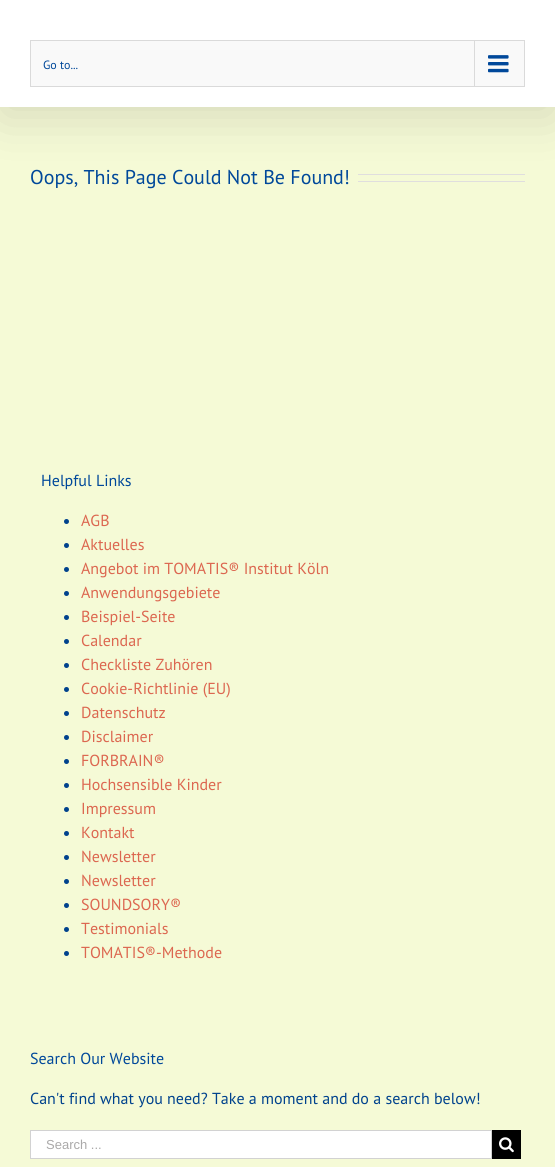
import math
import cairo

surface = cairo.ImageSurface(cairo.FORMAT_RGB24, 555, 1167)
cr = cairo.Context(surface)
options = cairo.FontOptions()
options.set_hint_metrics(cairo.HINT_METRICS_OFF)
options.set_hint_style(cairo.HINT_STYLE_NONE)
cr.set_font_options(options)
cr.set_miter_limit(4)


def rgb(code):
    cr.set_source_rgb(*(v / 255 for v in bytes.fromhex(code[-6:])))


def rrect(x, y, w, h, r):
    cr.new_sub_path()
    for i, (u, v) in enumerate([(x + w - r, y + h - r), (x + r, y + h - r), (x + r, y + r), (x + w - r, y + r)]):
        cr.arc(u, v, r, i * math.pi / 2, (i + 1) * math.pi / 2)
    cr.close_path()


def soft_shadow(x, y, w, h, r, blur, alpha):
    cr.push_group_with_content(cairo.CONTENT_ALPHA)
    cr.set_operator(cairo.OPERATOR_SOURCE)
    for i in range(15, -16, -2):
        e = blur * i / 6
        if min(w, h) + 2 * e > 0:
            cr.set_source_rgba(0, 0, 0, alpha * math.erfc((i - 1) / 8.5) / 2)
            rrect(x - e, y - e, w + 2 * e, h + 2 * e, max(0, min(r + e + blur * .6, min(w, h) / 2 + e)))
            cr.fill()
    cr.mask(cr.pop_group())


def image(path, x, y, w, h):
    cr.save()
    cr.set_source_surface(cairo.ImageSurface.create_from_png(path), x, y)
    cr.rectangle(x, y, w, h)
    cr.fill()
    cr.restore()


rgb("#f5fad6")
cr.paint()
rgb("#e0dede")
cr.rectangle(358, 174, 167, 1)
cr.fill()
cr.rectangle(358, 181, 167, 1)
cr.fill()
rgb("#000000")
soft_shadow(2, 12, 551, 103, 0, 25, 0.14)
rgb("#ffffff")
cr.rectangle(0, 0, 555, 107)
cr.fill()
rgb("#f9f9f9")
cr.rectangle(30.5, 40.5, 494, 46)
cr.fill_preserve()
rgb("#dadada")
cr.set_line_width(1)
cr.stroke()
cr.rectangle(474, 41, 1, 45)
cr.fill()
image("img/1.png", 488, 55, 21, 18)
rgb("#00428d")
cr.arc(66.5, 521.5, 2.5, 0, 2 * math.pi)
cr.fill()
cr.arc(66.5, 545.5, 2.5, 0, 2 * math.pi)
cr.fill()
cr.arc(66.5, 569.5, 2.5, 0, 2 * math.pi)
cr.fill()
cr.arc(66.5, 593.5, 2.5, 0, 2 * math.pi)
cr.fill()
cr.arc(66.5, 617.5, 2.5, 0, 2 * math.pi)
cr.fill()
cr.arc(66.5, 641.5, 2.5, 0, 2 * math.pi)
cr.fill()
cr.arc(66.5, 665.5, 2.5, 0, 2 * math.pi)
cr.fill()
cr.arc(66.5, 689.5, 2.5, 0, 2 * math.pi)
cr.fill()
cr.arc(66.5, 713.5, 2.5, 0, 2 * math.pi)
cr.fill()
cr.arc(66.5, 737.5, 2.5, 0, 2 * math.pi)
cr.fill()
cr.arc(66.5, 761.5, 2.5, 0, 2 * math.pi)
cr.fill()
cr.arc(66.5, 785.5, 2.5, 0, 2 * math.pi)
cr.fill()
cr.arc(66.5, 809.5, 2.5, 0, 2 * math.pi)
cr.fill()
cr.arc(66.5, 833.5, 2.5, 0, 2 * math.pi)
cr.fill()
cr.arc(66.5, 857.5, 2.5, 0, 2 * math.pi)
cr.fill()
cr.arc(66.5, 881.5, 2.5, 0, 2 * math.pi)
cr.fill()
cr.arc(66.5, 905.5, 2.5, 0, 2 * math.pi)
cr.fill()
cr.arc(66.5, 929.5, 2.5, 0, 2 * math.pi)
cr.fill()
cr.arc(66.5, 953.5, 2.5, 0, 2 * math.pi)
cr.fill()
rgb("#ffffff")
cr.rectangle(30.5, 1130.5, 461, 28)
cr.fill_preserve()
rgb("#d2d2d2")
cr.stroke()
rgb("#000000")
cr.rectangle(492, 1130, 29, 29)
cr.fill()
image("img/2.png", 499, 1137, 15, 16)
cr.select_font_face("PT Sans")
cr.set_font_size(12)
rgb("#00489a")
cr.move_to(43, 69)
cr.show_text("Go to...")
cr.set_font_size(20)
cr.move_to(30, 184)
cr.show_text("Oops, This Page Could Not Be Found!")
cr.set_font_size(16)
cr.move_to(41, 486)
cr.show_text("Helpful Links")
rgb("#dc6750")
for x, y, s in [
    (81, 526, "AGB"),
    (81, 550, "Aktuelles"),
    (81, 574, "Angebot im TOMATIS® Institut Köln"),
    (81, 598, "Anwendungsgebiete"),
    (81, 622, "Beispiel-Seite"),
    (81, 646, "Calendar"),
    (81, 670, "Checkliste Zuhören"),
    (81, 694, "Cookie-Richtlinie (EU)"),
    (81, 718, "Datenschutz"),
    (81, 742, "Disclaimer"),
    (81, 766, "FORBRAIN®"),
    (81, 790, "Hochsensible Kinder"),
    (81, 814, "Impressum"),
    (81, 838, "Kontakt"),
    (81, 862, "Newsletter"),
    (81, 886, "Newsletter"),
    (81, 910, "SOUNDSORY®"),
    (81, 934, "Testimonials"),
    (81, 958, "TOMATIS®-Methode"),
]:
    cr.move_to(x, y)
    cr.show_text(s)
rgb("#00489a")
cr.move_to(30, 1064)
cr.show_text("Search Our Website")
rgb("#00428d")
cr.move_to(30, 1104)
cr.show_text("Can't find what you need? Take a moment and do a search below!")
cr.select_font_face("Liberation Sans")
cr.set_font_size(13)
rgb("#aaa9a9")
cr.move_to(46, 1149)
cr.show_text("Search ...")
surface.write_to_png("page.png")
